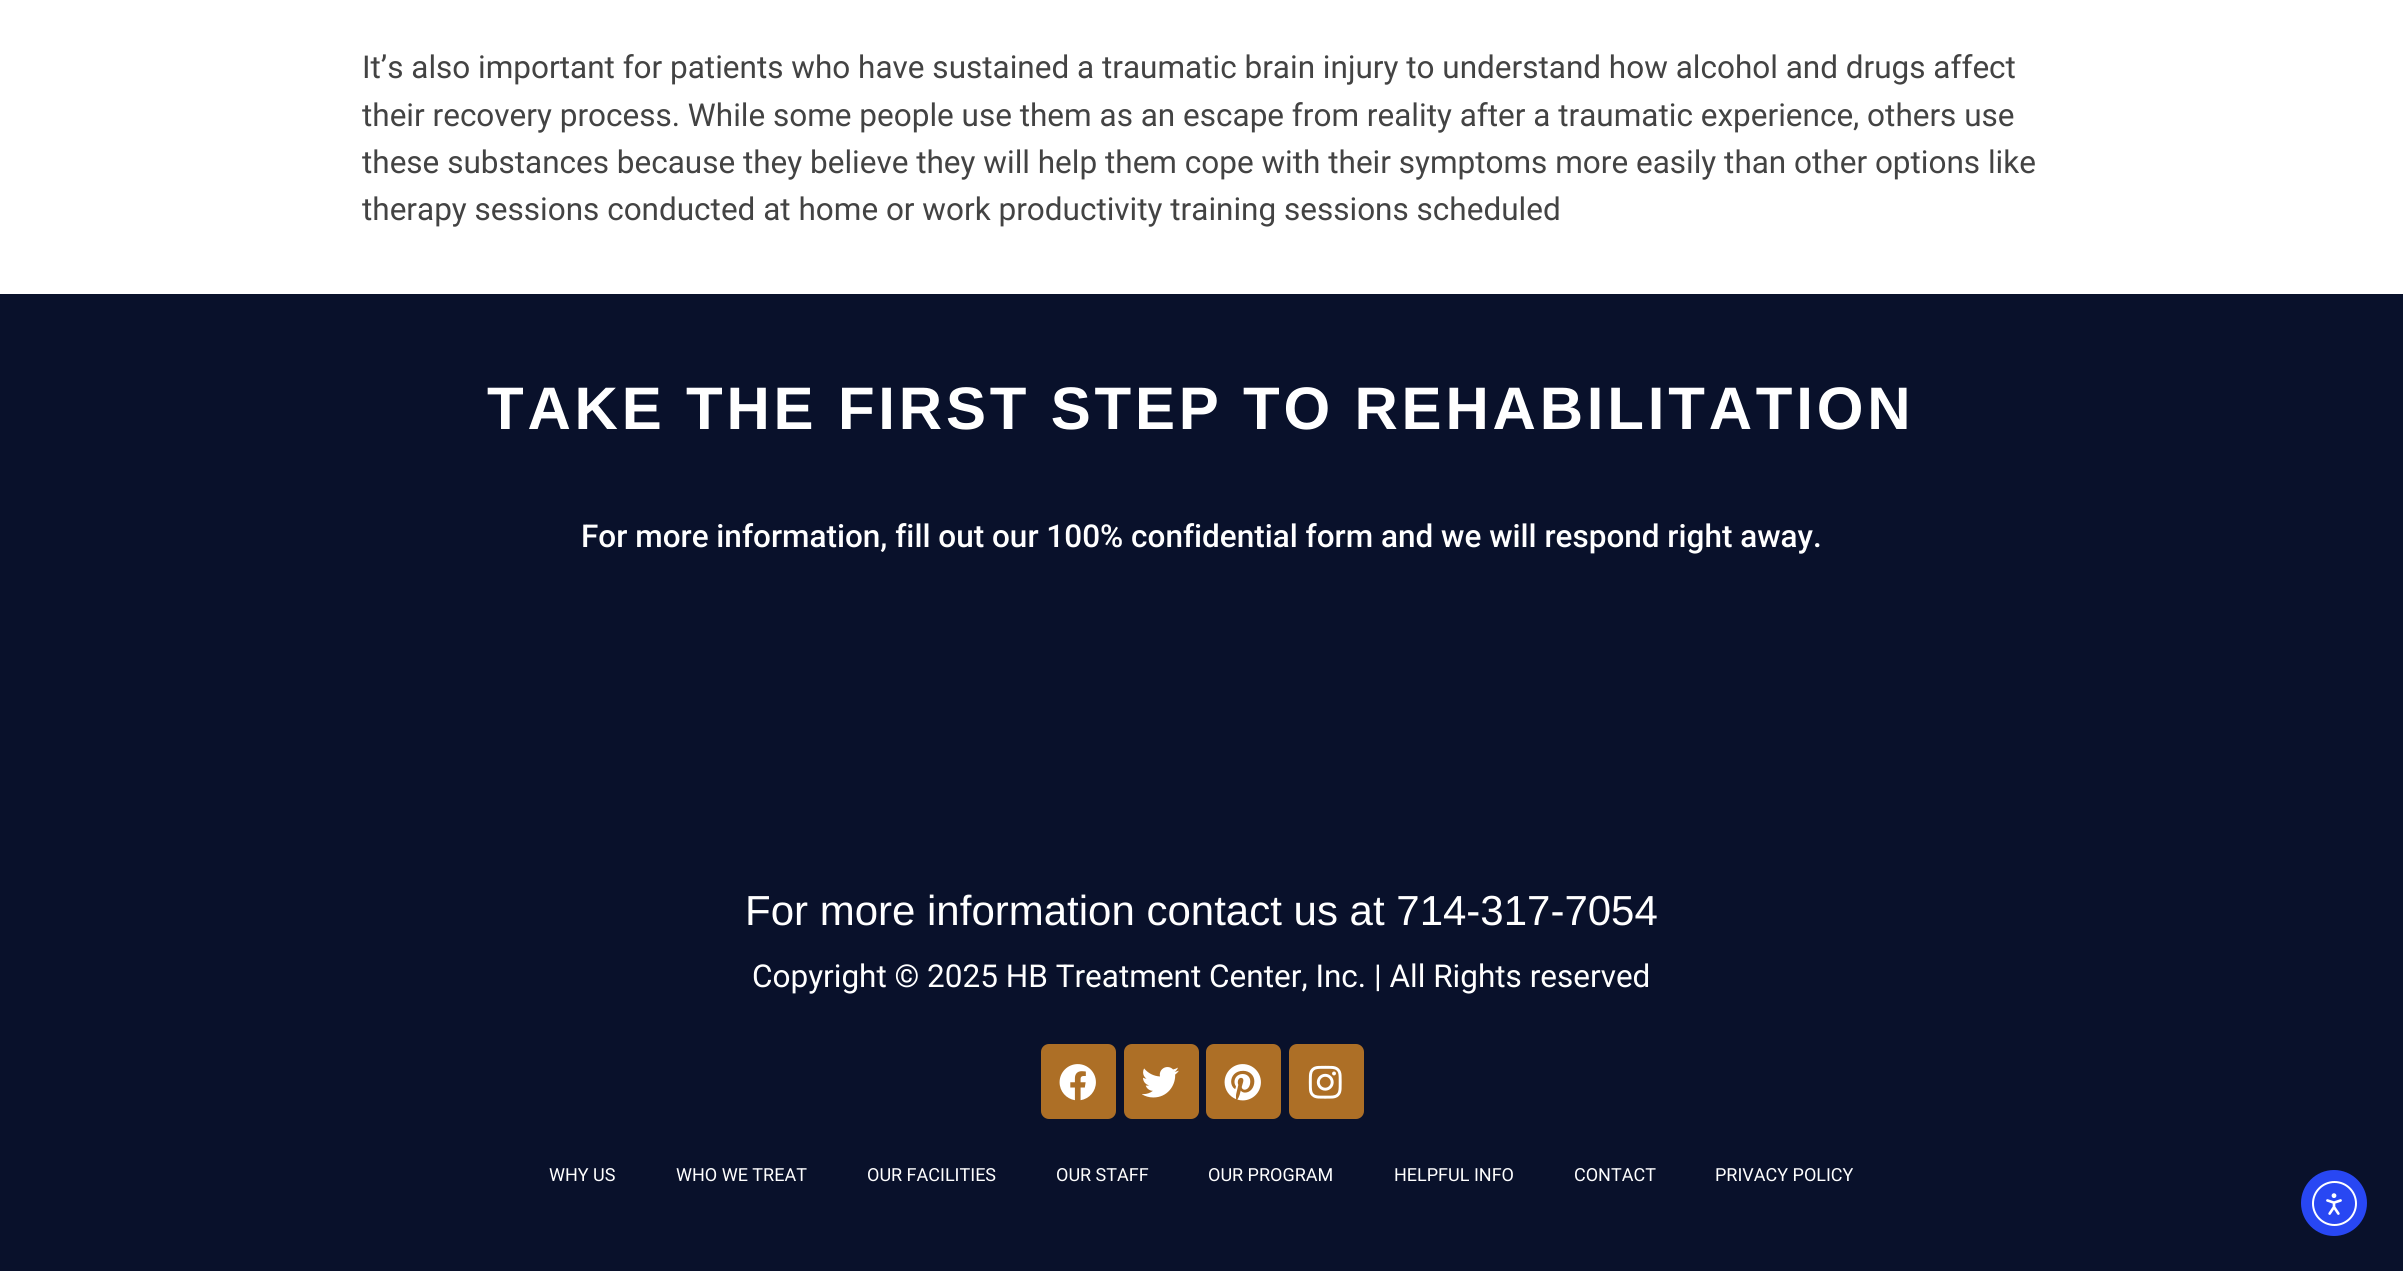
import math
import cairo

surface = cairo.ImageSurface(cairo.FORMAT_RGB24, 2403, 1271)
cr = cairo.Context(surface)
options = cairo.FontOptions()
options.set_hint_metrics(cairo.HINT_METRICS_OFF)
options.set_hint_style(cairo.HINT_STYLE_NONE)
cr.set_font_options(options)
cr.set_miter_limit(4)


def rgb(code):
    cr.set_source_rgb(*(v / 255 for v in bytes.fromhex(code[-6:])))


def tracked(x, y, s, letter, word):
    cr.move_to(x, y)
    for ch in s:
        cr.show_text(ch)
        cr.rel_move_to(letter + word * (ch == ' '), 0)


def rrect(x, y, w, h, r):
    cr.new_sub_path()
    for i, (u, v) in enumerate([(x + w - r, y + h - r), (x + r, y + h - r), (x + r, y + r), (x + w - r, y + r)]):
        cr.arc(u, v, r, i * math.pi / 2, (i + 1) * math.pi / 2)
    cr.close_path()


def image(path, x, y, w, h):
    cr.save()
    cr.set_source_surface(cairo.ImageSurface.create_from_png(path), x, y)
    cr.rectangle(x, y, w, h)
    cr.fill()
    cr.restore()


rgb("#ffffff")
cr.paint()
rgb("#09112b")
cr.rectangle(0, 294, 2403, 977)
cr.fill()
rgb("#ad6f26")
rrect(1041, 1044, 75, 75, 8)
cr.fill()
image("img/1.png", 1059, 1064, 37, 37)
rrect(1124, 1044, 75, 75, 8)
cr.fill()
image("img/2.png", 1142, 1067, 37, 31)
rrect(1206, 1044, 75, 75, 8)
cr.fill()
image("img/3.png", 1224, 1064, 37, 37)
rrect(1289, 1044, 75, 75, 8)
cr.fill()
image("img/4.png", 1308, 1065, 34, 34)
rgb("#2847f3")
cr.arc(2334, 1203, 33, 0, 2 * math.pi)
cr.fill()
cr.arc(2334.5, 1203.5, 21.5, 0, 2 * math.pi)
rgb("#ffffff")
cr.stroke()
image("img/5.png", 2326, 1193, 16, 22)
cr.select_font_face("Roboto")
cr.set_font_size(31.5)
rgb("#434343")
for x, y, s in [
    (362, 78, "It’s also important for patients who have sustained a traumatic brain injury to understand how alcohol and drugs affect"),
    (362, 126, "their recovery process. While some people use them as an escape from reality after a traumatic experience, others use"),
    (362, 173, "these substances because they believe they will help them cope with their symptoms more easily than other options like"),
    (362, 220, "therapy sessions conducted at home or work productivity training sessions scheduled"),
]:
    cr.move_to(x, y)
    cr.show_text(s)
cr.select_font_face("Liberation Sans", cairo.FONT_SLANT_NORMAL, cairo.FONT_WEIGHT_BOLD)
cr.set_font_size(60)
rgb("#ffffff")
tracked(487, 429, "TAKE THE FIRST STEP TO REHABILITATION", 3.8, 0)
cr.select_font_face("Roboto Medium")
cr.set_font_size(31.5)
cr.move_to(581, 547)
cr.show_text("For more information, fill out our 100% confidential form and we will respond right away.")
cr.select_font_face("Liberation Sans")
cr.set_font_size(42)
cr.move_to(745, 925)
cr.show_text("For more information contact us at 714-317-7054")
cr.select_font_face("Roboto")
cr.set_font_size(31.5)
cr.move_to(752, 987)
cr.show_text("Copyright © 2025 HB Treatment Center, Inc. | All Rights reserved")
cr.set_font_size(18)
for x, y, s in [
    (549, 1181, "WHY US"),
    (676, 1181, "WHO WE TREAT"),
    (867, 1181, "OUR FACILITIES"),
    (1056, 1181, "OUR STAFF"),
    (1208, 1181, "OUR PROGRAM"),
    (1394, 1181, "HELPFUL INFO"),
    (1574, 1181, "CONTACT"),
    (1715, 1181, "PRIVACY POLICY"),
]:
    cr.move_to(x, y)
    cr.show_text(s)
surface.write_to_png("page.png")
